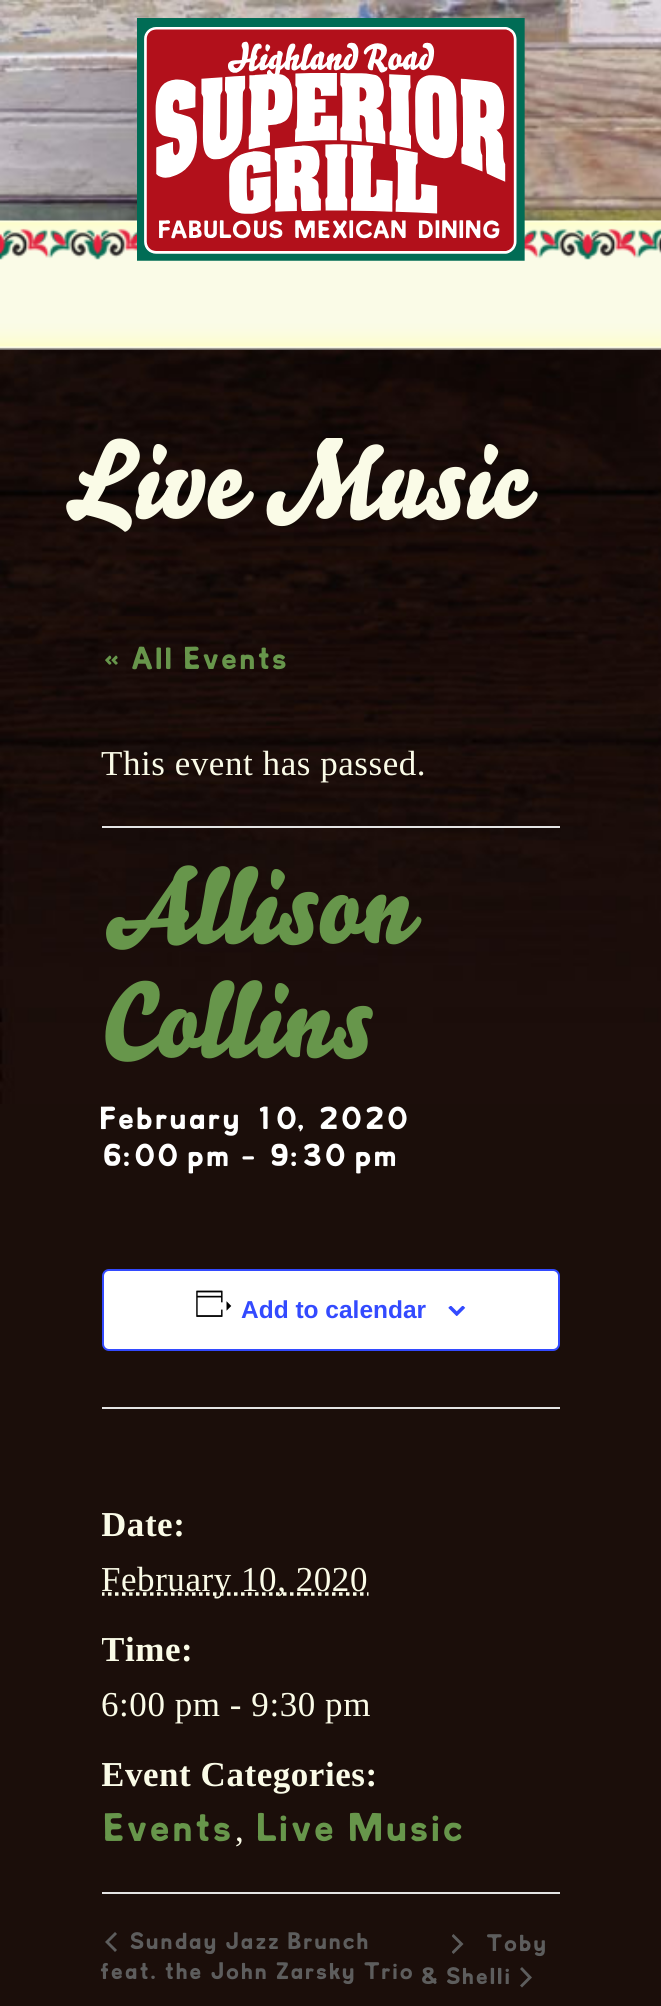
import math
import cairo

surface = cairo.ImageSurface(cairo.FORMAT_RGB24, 661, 2006)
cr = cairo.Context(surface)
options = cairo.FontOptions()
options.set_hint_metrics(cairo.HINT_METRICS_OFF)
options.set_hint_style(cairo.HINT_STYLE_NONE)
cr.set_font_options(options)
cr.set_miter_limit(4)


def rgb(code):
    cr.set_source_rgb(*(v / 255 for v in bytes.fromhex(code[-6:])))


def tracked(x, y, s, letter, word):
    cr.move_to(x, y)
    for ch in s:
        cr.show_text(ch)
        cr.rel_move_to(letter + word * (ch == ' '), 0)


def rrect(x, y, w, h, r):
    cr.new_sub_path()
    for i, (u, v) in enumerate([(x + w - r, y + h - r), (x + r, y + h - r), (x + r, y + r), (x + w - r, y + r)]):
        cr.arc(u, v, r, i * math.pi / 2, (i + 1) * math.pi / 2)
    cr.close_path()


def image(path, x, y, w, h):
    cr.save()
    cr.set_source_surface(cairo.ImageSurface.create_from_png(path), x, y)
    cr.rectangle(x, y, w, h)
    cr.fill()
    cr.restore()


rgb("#1b0e0a")
cr.paint()
image("img/1.png", 0, 0, 661, 350)
image("img/2.png", 137, 18, 388, 243)
image("img/3.png", 0, 350, 661, 754)
rgb("#e4e4e4")
cr.rectangle(102, 826, 458, 2)
cr.fill()
rgb("#ffffff")
rrect(103, 1270, 456, 80, 6)
cr.fill_preserve()
rgb("#334aff")
cr.stroke()
image("img/4.png", 196, 1290, 36, 27)
image("img/5.png", 448, 1306, 18, 10)
rgb("#e4e4e4")
cr.rectangle(102, 1407, 458, 2)
cr.fill()
cr.save()
cr.rectangle(102, 1213, 458, 679)
cr.clip()
cr.new_path()
cr.move_to(101, 1594)
cr.line_to(368.5, 1594)
rgb("#fafbe7")
cr.set_line_width(3.5)
cr.set_dash([3.5, 3.5])
cr.stroke()
cr.restore()
cr.rectangle(102, 1892, 458, 2)
cr.fill()
rgb("#5d5d5d")
cr.new_path()
cr.move_to(117, 1950)
cr.line_to(115, 1952)
cr.line_to(105, 1942)
cr.line_to(115, 1932)
cr.line_to(117, 1934)
cr.line_to(109, 1942)
cr.close_path()
cr.fill()
cr.new_path()
cr.move_to(520, 1969)
cr.line_to(522, 1967)
cr.line_to(532, 1977.5)
cr.line_to(522, 1987.5)
cr.line_to(520, 1985.5)
cr.line_to(528, 1977.5)
cr.close_path()
cr.fill()
cr.save()
cr.rectangle(452, 1934, 12, 21)
cr.clip()
cr.new_path()
cr.move_to(451.5, 1936)
cr.line_to(453.5, 1934)
cr.line_to(463.5, 1944)
cr.line_to(453.5, 1954)
cr.line_to(451.5, 1952)
cr.line_to(459.5, 1944)
cr.close_path()
cr.fill()
cr.restore()
cr.save()
cr.rectangle(0, 438, 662, 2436)
cr.clip()
cr.select_font_face("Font")
cr.set_font_size(105)
rgb("#fafbe7")
tracked(66, 518, "Live Music", 0.55, 0)
cr.restore()
cr.select_font_face("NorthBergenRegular")
cr.set_font_size(28)
rgb("#67964b")
tracked(105, 669, "« All Events", 0.55, 0)
cr.select_font_face("Liberation Serif")
cr.set_font_size(35)
rgb("#fafbe7")
tracked(101, 775, "This event has passed.", 0.55, 0)
cr.select_font_face("Font")
cr.set_font_size(105)
rgb("#67964b")
tracked(105, 943, "Allison", 0.55, 0)
tracked(101, 1057, "Collins", 0.55, 0)
cr.select_font_face("NorthBergenRegular")
cr.set_font_size(28)
rgb("#ffffff")
tracked(101, 1129, "February 10, 2020", 0.55, 0)
tracked(101, 1166, "6:00 pm - 9:30 pm", 0.55, 0)
cr.select_font_face("Liberation Sans", cairo.FONT_SLANT_NORMAL, cairo.FONT_WEIGHT_BOLD)
cr.set_font_size(24.5)
rgb("#334aff")
cr.move_to(241, 1318)
cr.show_text("Add to calendar")
cr.save()
cr.rectangle(102, 1213, 458, 679)
cr.clip()
cr.select_font_face("Liberation Serif", cairo.FONT_SLANT_NORMAL, cairo.FONT_WEIGHT_BOLD)
cr.set_font_size(35)
rgb("#fafbe7")
tracked(101, 1536, "Date:", 0.55, 0)
cr.restore()
cr.select_font_face("Liberation Serif")
cr.set_font_size(35)
rgb("#fafbe7")
tracked(101, 1591, "February 10, 2020", 0.55, 0)
cr.save()
cr.rectangle(102, 1213, 458, 679)
cr.clip()
cr.select_font_face("Liberation Serif", cairo.FONT_SLANT_NORMAL, cairo.FONT_WEIGHT_BOLD)
tracked(101, 1661, "Time:", 0.55, 0)
cr.restore()
tracked(101, 1716, "6:00 pm - 9:30 pm", 0.55, 0)
cr.save()
cr.rectangle(102, 1213, 458, 679)
cr.clip()
cr.select_font_face("Liberation Serif", cairo.FONT_SLANT_NORMAL, cairo.FONT_WEIGHT_BOLD)
tracked(101, 1786, "Event Categories:", 0.55, 0)
cr.restore()
cr.select_font_face("NorthBergenRegular")
rgb("#67964b")
tracked(105, 1841, "Events", 0.55, 0)
cr.select_font_face("Liberation Serif")
rgb("#fafbe7")
tracked(235, 1841, ",", 0.55, 0)
cr.select_font_face("NorthBergenRegular")
rgb("#67964b")
tracked(258, 1841, "Live Music", 0.55, 0)
cr.set_font_size(21)
rgb("#5d5d5d")
for x, y, s in [
    (131, 1949, "Sunday Jazz Brunch"),
    (101, 1979, "feat. the John Zarsky Trio"),
    (487, 1951, "Toby"),
    (422, 1984, "& Shelli"),
]:
    tracked(x, y, s, 0.55, 0)
surface.write_to_png("page.png")
